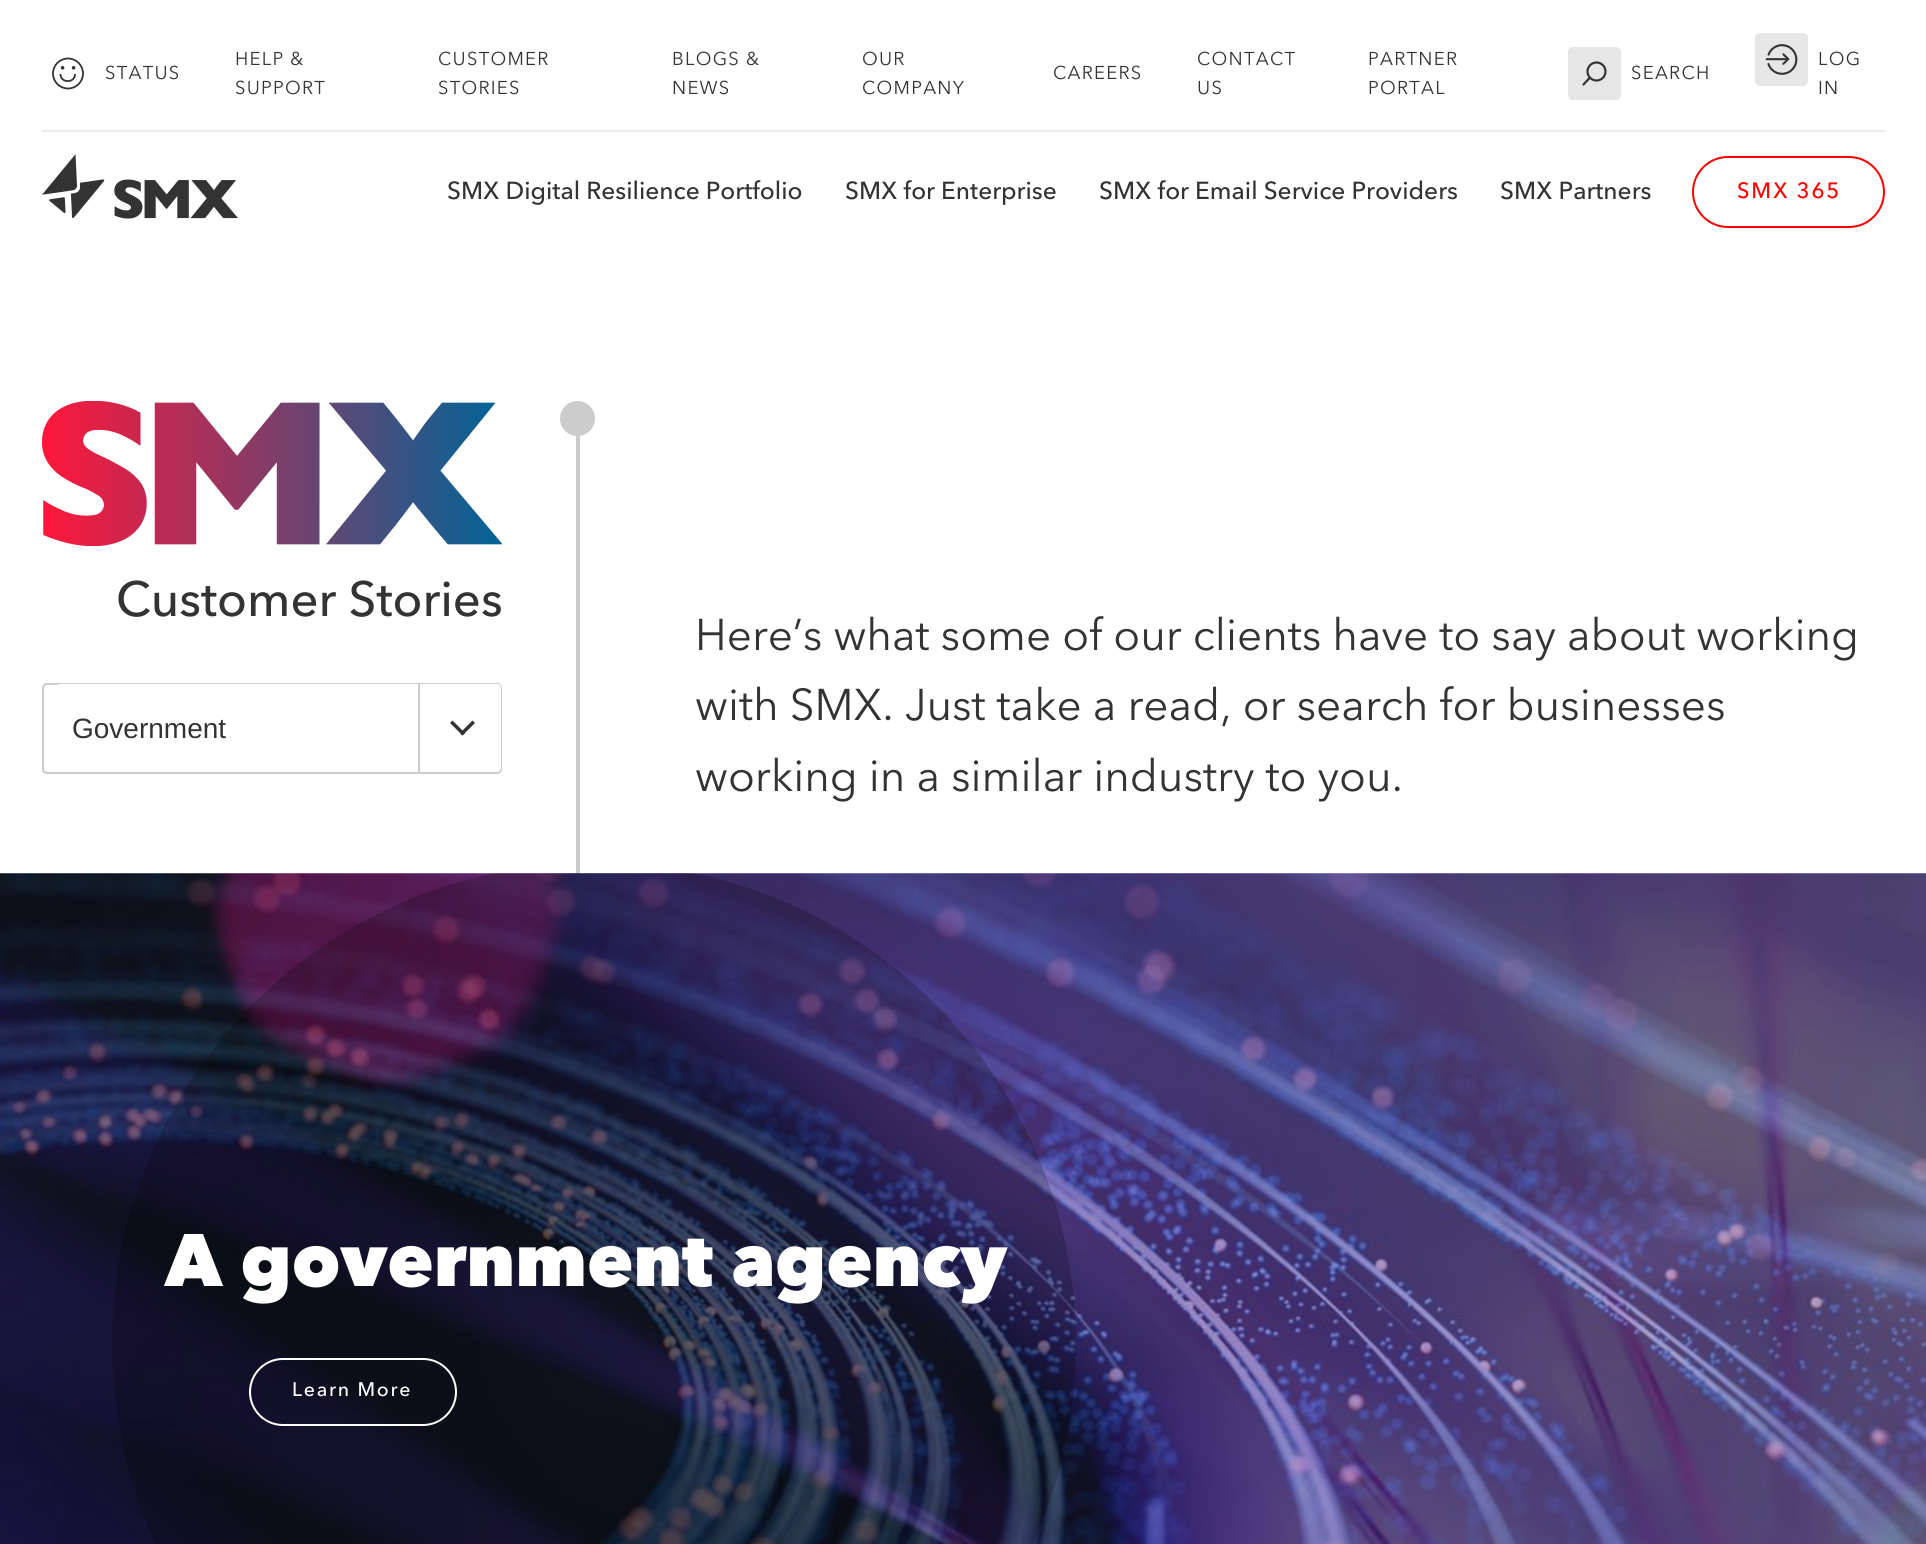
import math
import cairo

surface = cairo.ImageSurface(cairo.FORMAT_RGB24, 1926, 1544)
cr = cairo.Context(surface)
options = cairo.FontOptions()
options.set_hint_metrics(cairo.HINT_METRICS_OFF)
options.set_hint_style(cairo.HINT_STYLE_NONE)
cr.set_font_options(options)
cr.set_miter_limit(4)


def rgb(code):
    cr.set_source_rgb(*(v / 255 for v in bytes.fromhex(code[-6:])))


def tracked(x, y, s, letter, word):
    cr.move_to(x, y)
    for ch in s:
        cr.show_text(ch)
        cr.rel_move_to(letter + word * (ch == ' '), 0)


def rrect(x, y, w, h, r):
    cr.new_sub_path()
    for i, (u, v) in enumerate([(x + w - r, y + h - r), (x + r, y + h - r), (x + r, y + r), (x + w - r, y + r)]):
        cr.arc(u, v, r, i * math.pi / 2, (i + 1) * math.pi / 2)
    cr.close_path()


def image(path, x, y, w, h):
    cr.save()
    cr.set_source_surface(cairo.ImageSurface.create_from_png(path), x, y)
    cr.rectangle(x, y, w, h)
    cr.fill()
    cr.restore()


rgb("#ffffff")
cr.paint()
rgb("#ebebeb")
cr.rectangle(42, 130, 1843, 2)
cr.fill()
cr.arc(68, 73.5, 15, 0, 2 * math.pi)
rgb("#333333")
cr.set_line_width(1.8)
cr.stroke()
cr.new_path()
cr.move_to(75, 74)
cr.curve_to(75, 83.5, 60.5, 83.5, 60.5, 74)
cr.stroke()
cr.arc(62.6, 67.8, 1.8, 0, 2 * math.pi)
cr.fill()
cr.arc(73.6, 67.8, 1.8, 0, 2 * math.pi)
cr.fill()
rgb("#e6e6e6")
rrect(1568, 47, 53, 53, 5)
cr.fill()
cr.arc(1596.5, 71.5, 9, 0, 2 * math.pi)
rgb("#333333")
cr.set_line_width(2.2)
cr.stroke()
cr.new_path()
cr.move_to(1583.5, 84.5)
cr.line_to(1589.5, 78)
cr.set_line_cap(cairo.LINE_CAP_ROUND)
cr.stroke()
rgb("#e6e6e6")
rrect(1755, 33, 53, 53, 5)
cr.fill()
image("img/1.png", 1765, 44, 33, 31)
image("img/2.png", 42, 154, 196, 65)
rrect(1693, 157, 191, 70, 35)
rgb("#ff0000")
cr.set_line_width(2)
cr.set_line_cap(cairo.LINE_CAP_BUTT)
cr.stroke()
image("img/3.png", 42, 401, 460, 145)
rgb("#cccccc")
cr.rectangle(576, 401, 4, 473)
cr.fill()
cr.arc(577.5, 418.5, 17.5, 0, 2 * math.pi)
cr.fill()
rrect(43, 684, 458, 89, 4)
cr.stroke()
rgb("#ffffff")
cr.new_path()
cr.move_to(58, 684)
cr.line_to(497, 684)
cr.curve_to(499, 684, 501, 686, 501, 688)
cr.line_to(501, 768)
cr.curve_to(501, 770, 499, 772, 497, 772)
cr.line_to(58, 772)
cr.close_path()
cr.fill()
rgb("#cccccc")
cr.rectangle(418, 684, 2, 88)
cr.fill()
rgb("#333333")
cr.new_path()
cr.move_to(472.5, 720.5)
cr.line_to(475, 723)
cr.line_to(462.5, 735.5)
cr.line_to(460, 733)
cr.close_path()
cr.fill()
cr.new_path()
cr.move_to(452.5, 720.5)
cr.line_to(465, 733)
cr.line_to(462.5, 735.5)
cr.line_to(450, 723)
cr.close_path()
cr.fill()
image("img/4.png", 0, 873, 1926, 671)
cr.save()
cr.rectangle(0, 873, 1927, 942)
cr.clip()
cr.set_source_rgba(0, 0, 0, 0.2)
rrect(112, 863, 964, 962, 481)
cr.fill()
cr.restore()
rrect(250, 1359, 206, 66, 33)
rgb("#ffffff")
cr.stroke()
cr.select_font_face("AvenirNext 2")
cr.set_font_size(18.5)
rgb("#333333")
for x, y, s in [
    (105, 79, "STATUS"),
    (235, 65, "HELP &"),
    (235, 94, "SUPPORT"),
    (438, 65, "CUSTOMER"),
    (438, 94, "STORIES"),
    (672, 65, "BLOGS &"),
    (672, 94, "NEWS"),
    (862, 65, "OUR"),
    (862, 94, "COMPANY"),
    (1053, 79, "CAREERS"),
    (1197, 65, "CONTACT"),
    (1197, 94, "US"),
    (1368, 65, "PARTNER"),
    (1368, 94, "PORTAL"),
    (1631, 79, "SEARCH"),
    (1818, 65, "LOG"),
    (1818, 94, "IN"),
]:
    tracked(x, y, s, 1.25, 0)
cr.select_font_face("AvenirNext")
cr.set_font_size(24.5)
for x, y, s in [
    (447, 199, "SMX Digital Resilience Portfolio"),
    (845, 199, "SMX for Enterprise"),
    (1099, 199, "SMX for Email Service Providers"),
    (1500, 199, "SMX Partners"),
]:
    cr.move_to(x, y)
    cr.show_text(s)
cr.set_font_size(22)
rgb("#ff0000")
tracked(1737, 198, "SMX 365", 1.75, 0)
cr.set_font_size(49)
rgb("#333333")
cr.move_to(116, 616)
cr.show_text("Customer Stories")
cr.select_font_face("Liberation Sans")
cr.set_font_size(28)
cr.move_to(72, 738)
cr.show_text("Government")
cr.select_font_face("AvenirNext 2")
cr.set_font_size(44.1)
for x, y, s in [
    (695, 650, "Here’s what some of our clients have to say about working"),
    (695, 720, "with SMX. Just take a read, or search for businesses"),
    (695, 791, "working in a similar industry to you."),
]:
    cr.move_to(x, y)
    cr.show_text(s)
cr.select_font_face("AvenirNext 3")
cr.set_font_size(73.5)
rgb("#ffffff")
cr.move_to(165, 1286)
cr.show_text("A government agency")
cr.select_font_face("AvenirNext")
cr.set_font_size(19.5)
tracked(292, 1396, "Learn More", 1.75, 0)
surface.write_to_png("page.png")
